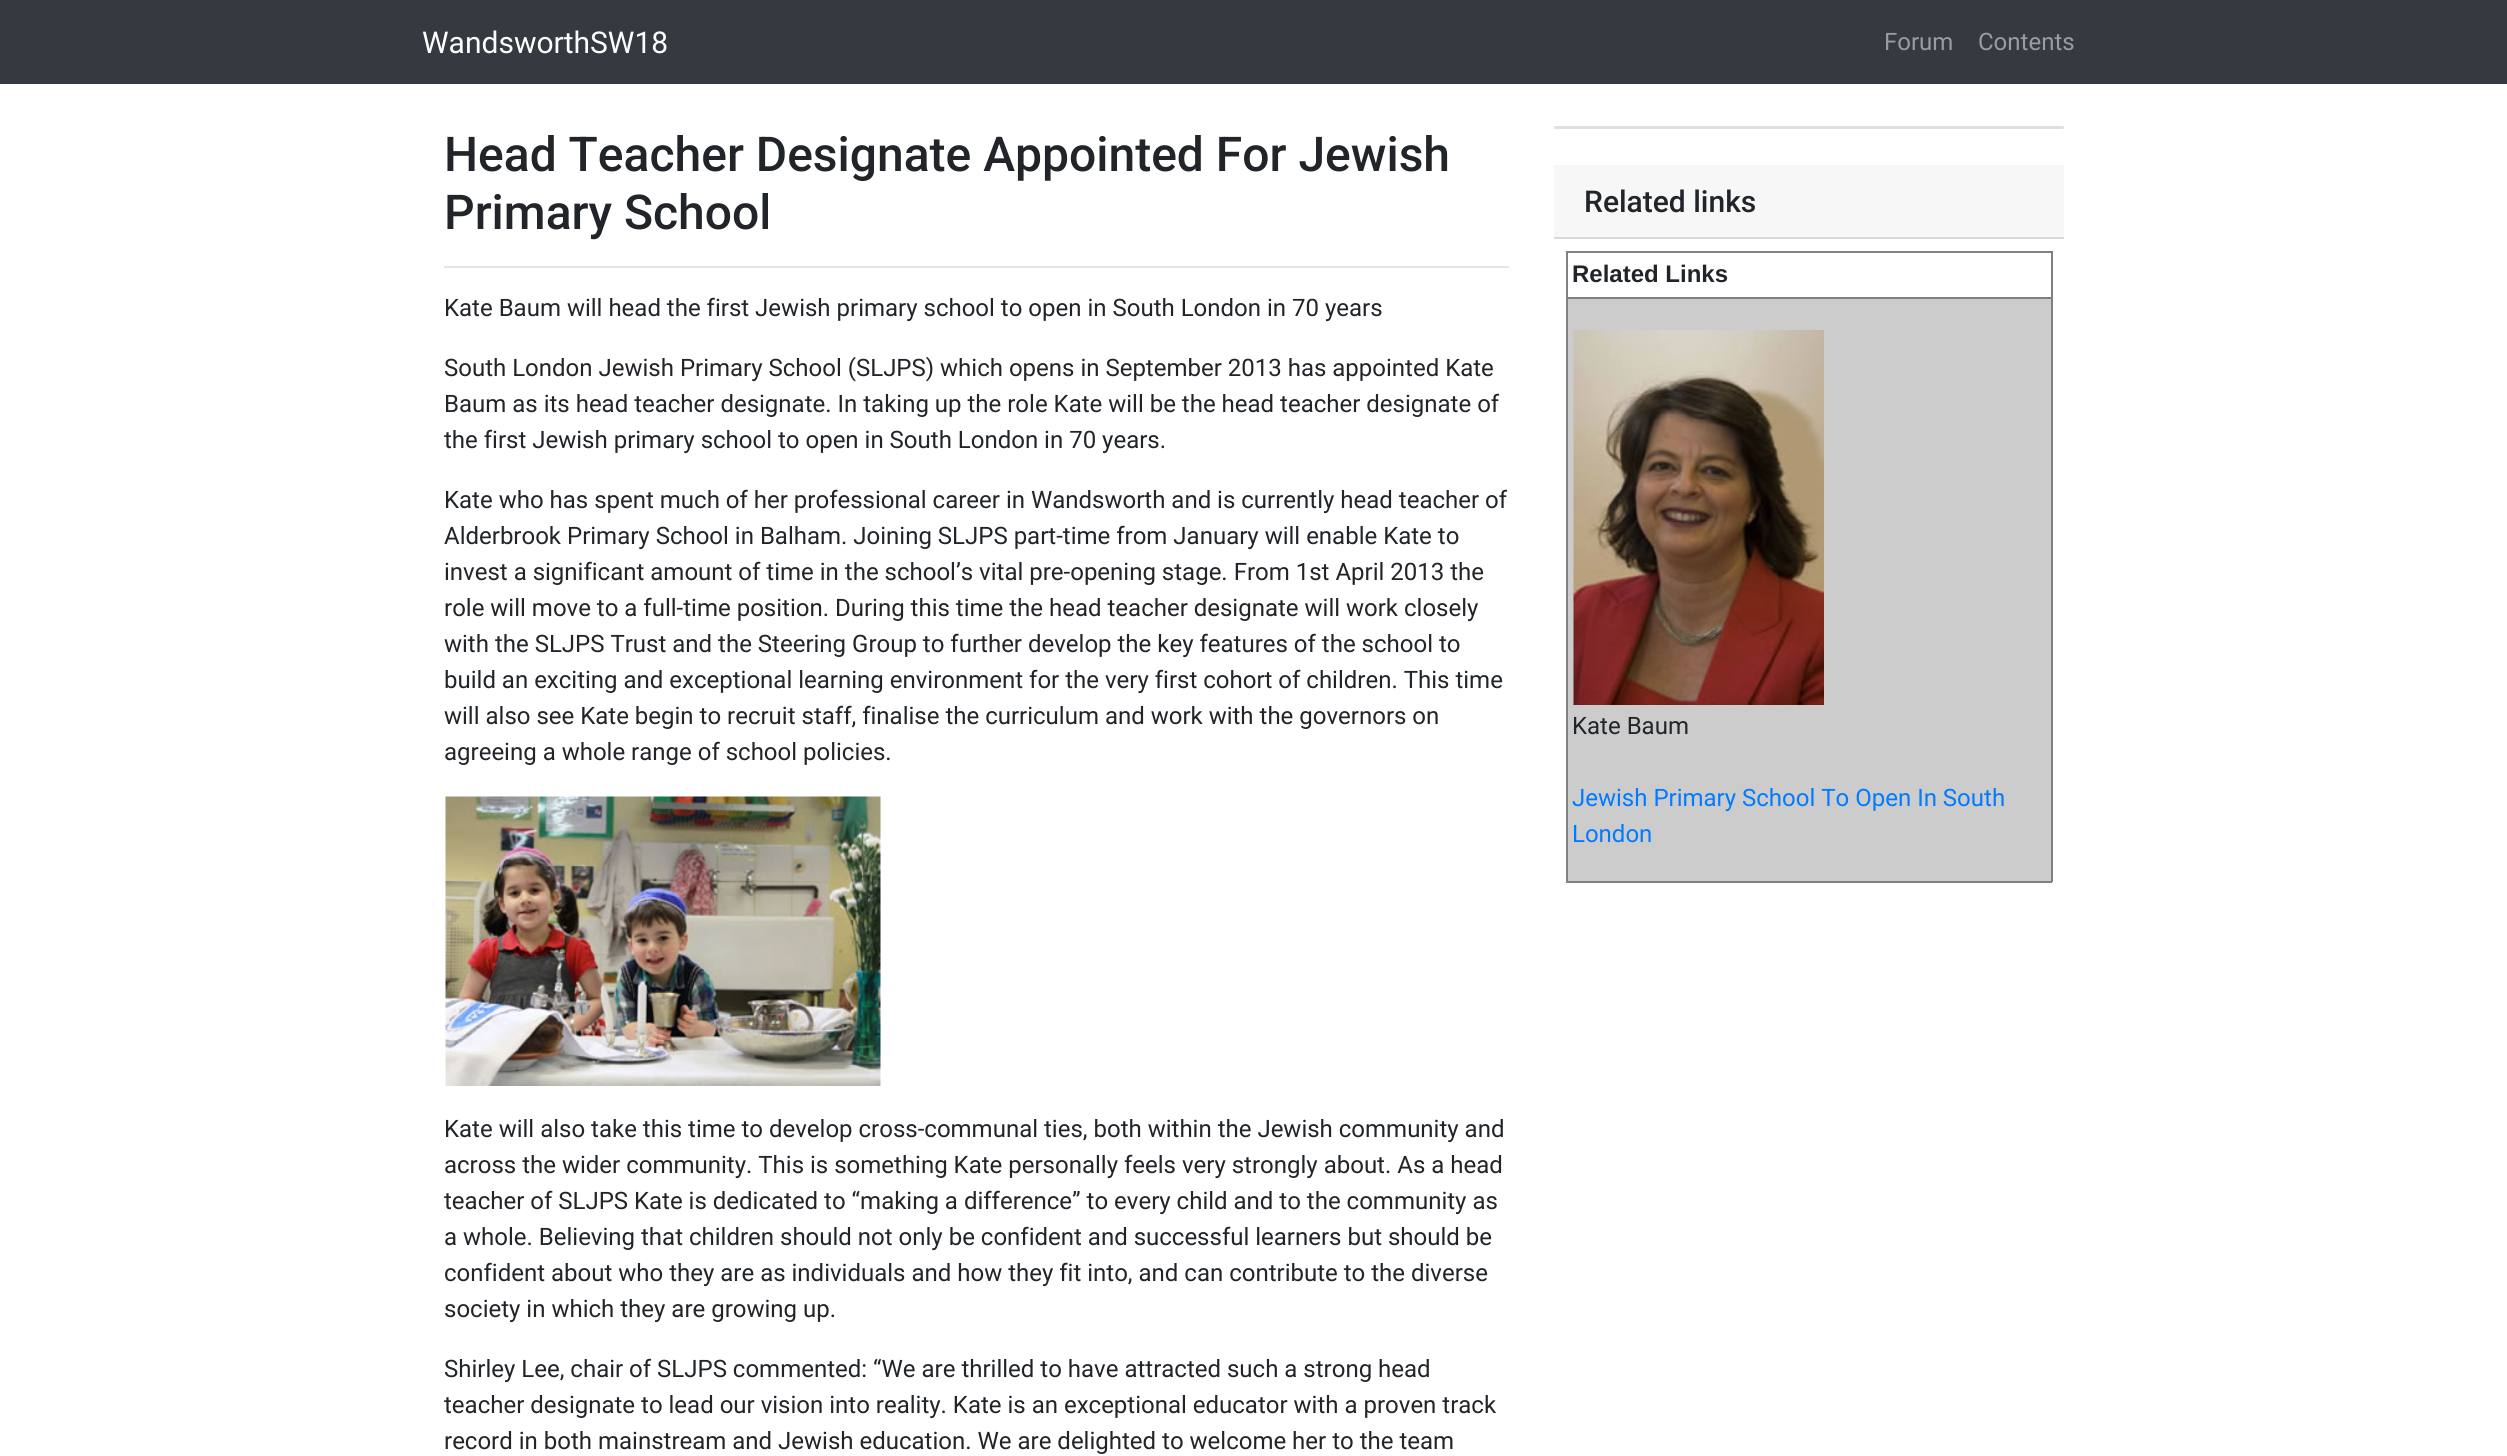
import math
import cairo

surface = cairo.ImageSurface(cairo.FORMAT_RGB24, 2507, 1456)
cr = cairo.Context(surface)
options = cairo.FontOptions()
options.set_hint_metrics(cairo.HINT_METRICS_OFF)
options.set_hint_style(cairo.HINT_STYLE_NONE)
cr.set_font_options(options)
cr.set_miter_limit(4)


def rgb(code):
    cr.set_source_rgb(*(v / 255 for v in bytes.fromhex(code[-6:])))


def rrect(x, y, w, h, r):
    cr.new_sub_path()
    for i, (u, v) in enumerate([(x + w - r, y + h - r), (x + r, y + h - r), (x + r, y + r), (x + w - r, y + r)]):
        cr.arc(u, v, r, i * math.pi / 2, (i + 1) * math.pi / 2)
    cr.close_path()


def image(path, x, y, w, h):
    cr.save()
    cr.set_source_surface(cairo.ImageSurface.create_from_png(path), x, y)
    cr.rectangle(x, y, w, h)
    cr.fill()
    cr.restore()


rgb("#ffffff")
cr.paint()
rgb("#343a40")
cr.rectangle(0, 0, 2507, 84)
cr.fill()
rgb("#e6e6e6")
cr.rectangle(444, 266, 1065, 2)
cr.fill()
image("img/1.png", 445, 796, 436, 290)
rgb("#dfdfdf")
rrect(1554, 126, 510, 3, 1.5)
cr.fill()
for x, y, w, h, color in [
    (1554, 165, 510, 72, "#f7f7f7"),
    (1554, 237, 510, 2, "#d8d8d8"),
    (1566, 251, 486, 2, "#808080"),
    (2051, 251, 2, 631, "#808080"),
    (1566, 881, 486, 2, "#808080"),
    (1566, 251, 2, 631, "#808080"),
    (1568, 299, 483, 582, "#cccccc"),
    (1566, 297, 486, 2, "#808080"),
]:
    rgb(color)
    cr.rectangle(x, y, w, h)
    cr.fill()
image("img/2.png", 1573, 330, 251, 375)
cr.select_font_face("Roboto")
cr.set_font_size(30)
rgb("#ffffff")
cr.move_to(422, 53)
cr.show_text("WandsworthSW18")
cr.set_font_size(24)
rgb("#9a9da0")
cr.move_to(1884, 50)
cr.show_text("Forum")
cr.move_to(1978, 50)
cr.show_text("Contents")
cr.select_font_face("Roboto Medium")
cr.set_font_size(48)
rgb("#212529")
cr.move_to(444, 171)
cr.show_text("Head Teacher Designate Appointed For Jewish")
cr.move_to(444, 229)
cr.show_text("Primary School")
cr.select_font_face("Roboto")
cr.set_font_size(24)
for x, y, s in [
    (444, 316, "Kate Baum will head the first Jewish primary school to open in South London in 70 years"),
    (444, 376, "South London Jewish Primary School (SLJPS) which opens in September 2013 has appointed Kate"),
    (444, 412, "Baum as its head teacher designate. In taking up the role Kate will be the head teacher designate of"),
    (444, 448, "the first Jewish primary school to open in South London in 70 years."),
    (444, 508, "Kate who has spent much of her professional career in Wandsworth and is currently head teacher of"),
    (444, 544, "Alderbrook Primary School in Balham. Joining SLJPS part-time from January will enable Kate to"),
    (444, 580, "invest a significant amount of time in the school’s vital pre-opening stage. From 1st April 2013 the"),
    (444, 616, "role will move to a full-time position. During this time the head teacher designate will work closely"),
    (444, 652, "with the SLJPS Trust and the Steering Group to further develop the key features of the school to"),
    (444, 688, "build an exciting and exceptional learning environment for the very first cohort of children. This time"),
    (444, 724, "will also see Kate begin to recruit staff, finalise the curriculum and work with the governors on"),
    (444, 760, "agreeing a whole range of school policies."),
    (444, 1137, "Kate will also take this time to develop cross-communal ties, both within the Jewish community and"),
    (444, 1173, "across the wider community. This is something Kate personally feels very strongly about. As a head"),
    (444, 1209, "teacher of SLJPS Kate is dedicated to “making a difference” to every child and to the community as"),
    (444, 1245, "a whole. Believing that children should not only be confident and successful learners but should be"),
    (444, 1281, "confident about who they are as individuals and how they fit into, and can contribute to the diverse"),
    (444, 1317, "society in which they are growing up."),
    (444, 1377, "Shirley Lee, chair of SLJPS commented: “We are thrilled to have attracted such a strong head"),
    (444, 1413, "teacher designate to lead our vision into reality. Kate is an exceptional educator with a proven track"),
    (444, 1449, "record in both mainstream and Jewish education. We are delighted to welcome her to the team"),
]:
    cr.move_to(x, y)
    cr.show_text(s)
cr.select_font_face("Roboto Medium")
cr.set_font_size(30)
cr.move_to(1584, 212)
cr.show_text("Related links")
cr.select_font_face("Liberation Sans", cairo.FONT_SLANT_NORMAL, cairo.FONT_WEIGHT_BOLD)
cr.set_font_size(24)
cr.move_to(1572, 282)
cr.show_text("Related Links")
cr.select_font_face("Roboto")
cr.move_to(1572, 734)
cr.show_text("Kate Baum")
rgb("#007bff")
cr.move_to(1572, 806)
cr.show_text("Jewish Primary School To Open In South")
cr.move_to(1572, 842)
cr.show_text("London")
surface.write_to_png("page.png")
